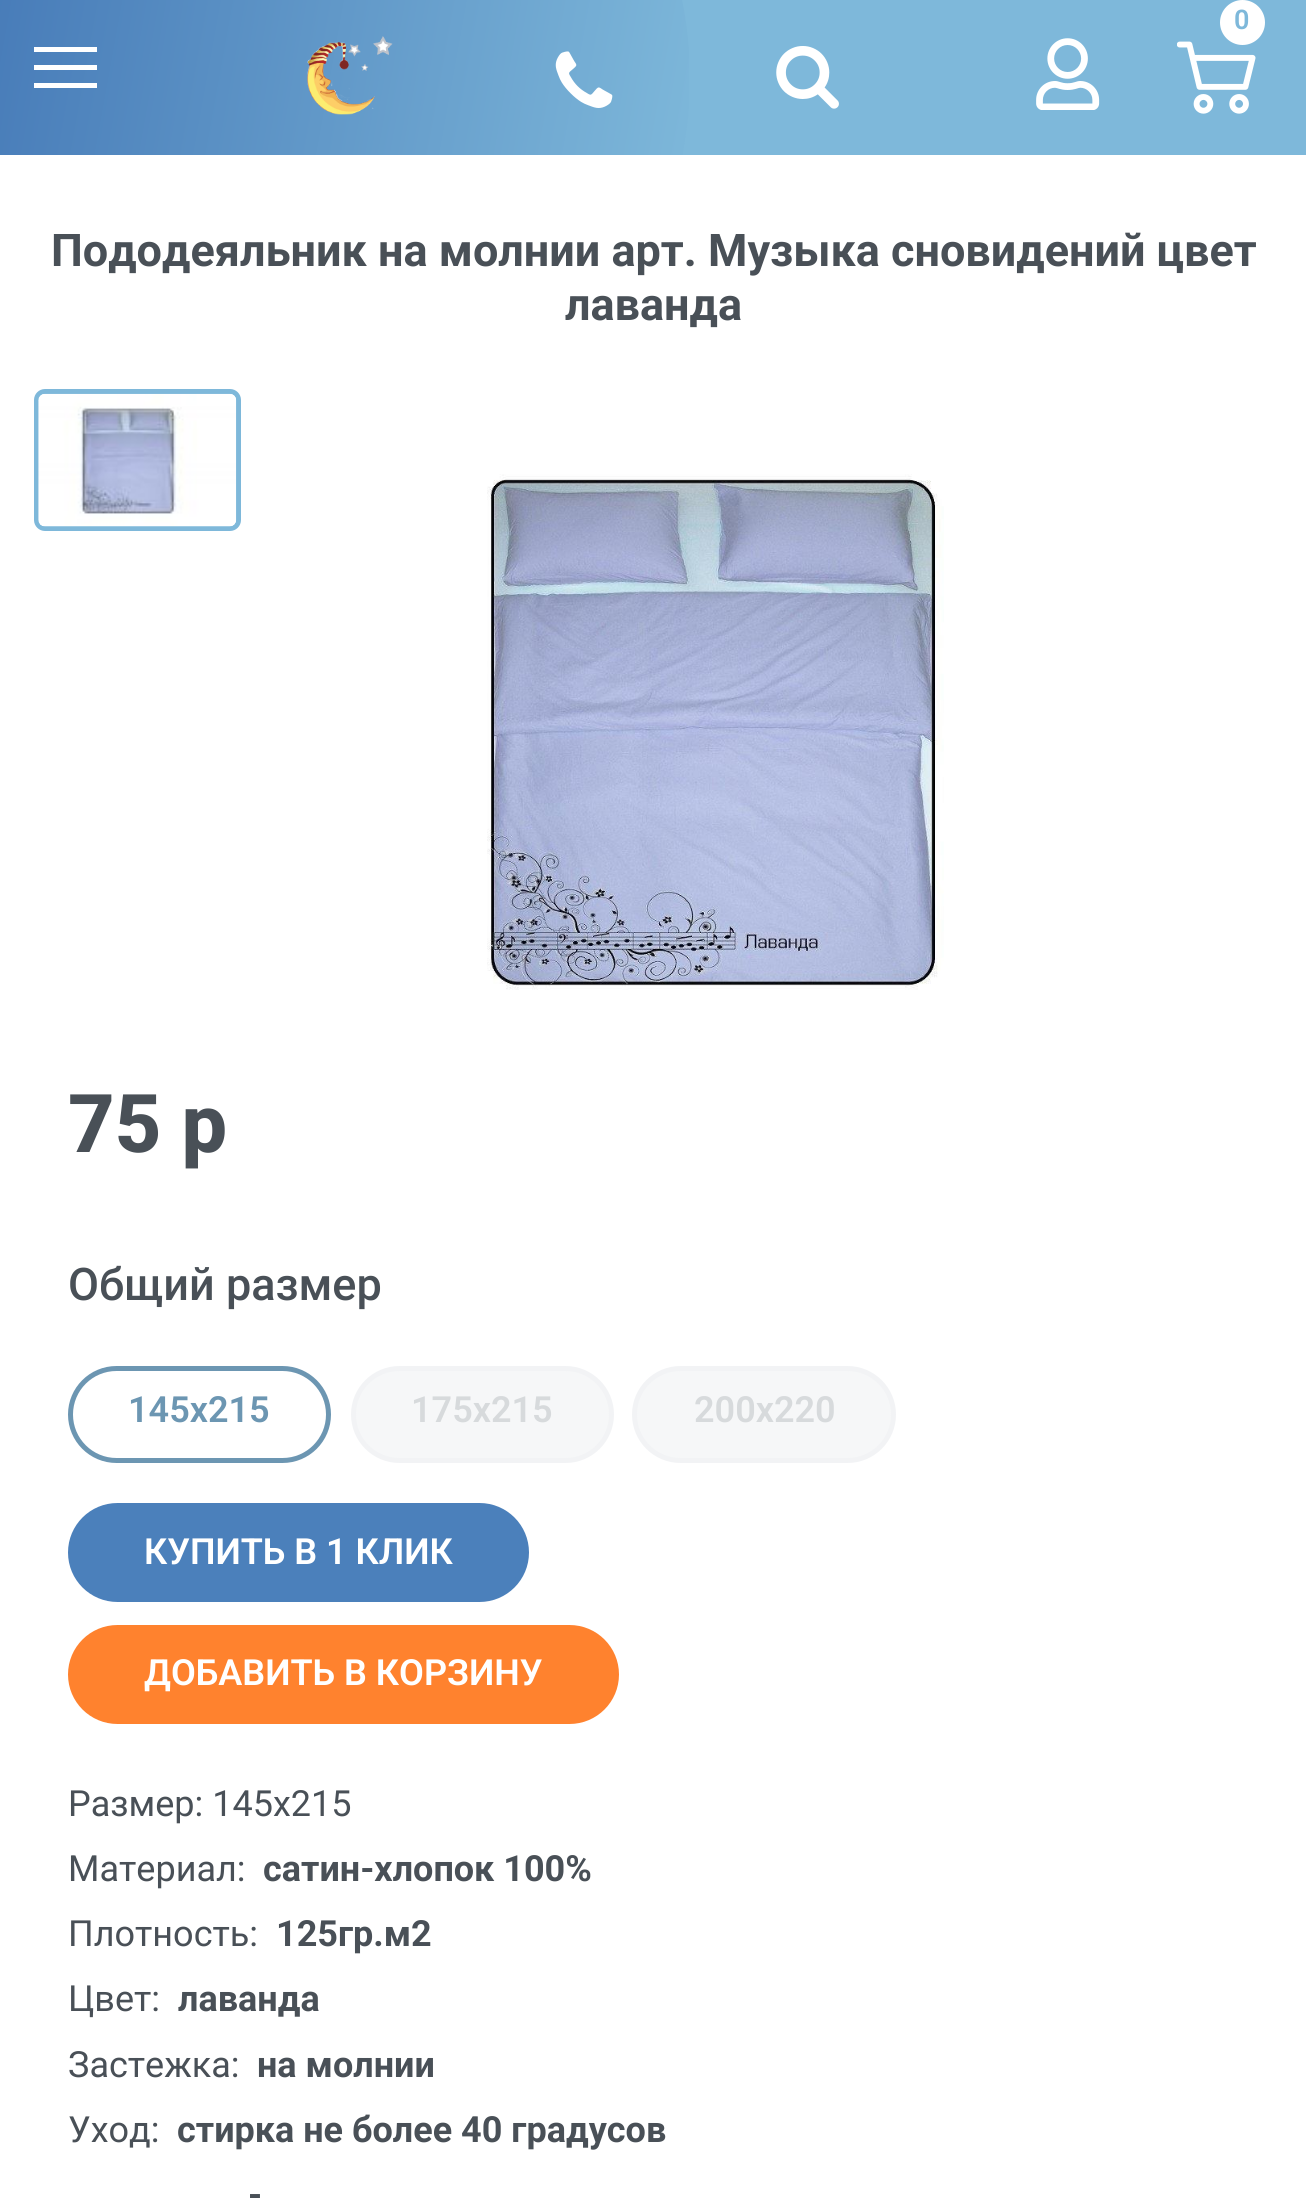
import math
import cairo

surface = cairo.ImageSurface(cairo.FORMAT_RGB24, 1306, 2199)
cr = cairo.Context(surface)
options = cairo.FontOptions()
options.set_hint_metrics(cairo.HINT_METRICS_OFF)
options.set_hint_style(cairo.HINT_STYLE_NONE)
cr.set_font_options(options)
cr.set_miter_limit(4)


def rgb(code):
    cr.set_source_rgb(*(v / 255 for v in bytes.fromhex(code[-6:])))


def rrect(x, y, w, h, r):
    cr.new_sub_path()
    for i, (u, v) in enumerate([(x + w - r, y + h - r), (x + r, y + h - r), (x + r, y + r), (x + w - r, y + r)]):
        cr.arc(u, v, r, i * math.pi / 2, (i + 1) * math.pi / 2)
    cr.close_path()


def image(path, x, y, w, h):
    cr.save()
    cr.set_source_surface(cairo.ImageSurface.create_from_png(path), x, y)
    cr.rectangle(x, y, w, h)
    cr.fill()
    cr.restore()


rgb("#7eb8da")
cr.paint()
cr.save()
cr.rectangle(0, 0, 689, 155)
cr.clip()
gradient = cairo.LinearGradient(-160, 27, 700, 182)
gradient.add_color_stop_rgba(0, 0.239, 0.439, 0.698, 1)
gradient.add_color_stop_rgba(1, 0.494, 0.722, 0.855, 1)
gradient.add_color_stop_rgba(1, 0.514, 0.682, 0.788, 1)
gradient.add_color_stop_rgba(1, 1, 1, 1, 1)
cr.set_source(gradient)
cr.arc(294, 78.5, 396, 0, 2 * math.pi)
cr.fill()
cr.restore()
image("img/2.png", 1177, 41, 79, 73)
rgb("#ffffff")
cr.arc(1242.5, 22.5, 22.5, 0, 2 * math.pi)
cr.fill()
image("img/1.png", 1036, 38, 64, 72)
for x, y, w, h, color in [
    (34, 47, 63, 5, "#ffffff"),
    (34, 65, 63, 5, "#ffffff"),
    (34, 83, 63, 5, "#ffffff"),
]:
    rgb(color)
    cr.rectangle(x, y, w, h)
    cr.fill()
image("img/3.png", 307, 36, 86, 79)
image("img/4.png", 555, 51, 58, 57)
image("img/5.png", 776, 46, 63, 63)
cr.rectangle(0, 155, 1306, 2044)
cr.fill()
rrect(36.5, 391.5, 202, 137, 8.5)
rgb("#7eb8da")
cr.set_line_width(5)
cr.stroke()
image("img/6.png", 38, 393, 199, 134)
image("img/7.png", 487, 474, 457, 516)
rrect(70.5, 1368.5, 258, 92, 46)
rgb("#6c96b2")
cr.stroke()
rgb("#f6f7f8")
rrect(353.5, 1368.5, 258, 92, 46)
cr.fill_preserve()
rgb("#f2f3f5")
cr.stroke()
rgb("#f6f7f8")
rrect(634.5, 1368.5, 259, 92, 46)
cr.fill_preserve()
rgb("#f2f3f5")
cr.stroke()
rgb("#4b80bb")
rrect(70.5, 1505.5, 456, 94, 47)
cr.fill_preserve()
cr.stroke()
rgb("#ff822e")
rrect(70.5, 1627.5, 546, 94, 47)
cr.fill_preserve()
cr.stroke()
cr.select_font_face("Roboto SemiBold")
cr.set_font_size(27)
rgb("#7eb8da")
cr.move_to(1234, 29)
cr.show_text("0")
cr.select_font_face("Roboto", cairo.FONT_SLANT_NORMAL, cairo.FONT_WEIGHT_BOLD)
cr.set_font_size(45)
rgb("#495057")
cr.move_to(51, 266)
cr.show_text("Пододеяльник на молнии арт. Музыка сновидений цвет")
cr.move_to(565, 320)
cr.show_text("лаванда")
cr.select_font_face("Roboto ExtraBold")
cr.set_font_size(81)
cr.move_to(68, 1152)
cr.show_text("75 p")
cr.select_font_face("Roboto Medium")
cr.set_font_size(45)
cr.move_to(68, 1300)
cr.show_text("Общий размер")
cr.select_font_face("Roboto SemiBold")
cr.set_font_size(36)
rgb("#6c96b2")
cr.move_to(128, 1422)
cr.show_text("145х215")
rgb("#d7dadc")
cr.move_to(411, 1422)
cr.show_text("175х215")
cr.move_to(694, 1422)
cr.show_text("200х220")
rgb("#ffffff")
cr.move_to(144, 1564)
cr.show_text("КУПИТЬ В 1 КЛИК")
cr.move_to(144, 1685)
cr.show_text("ДОБАВИТЬ В КОРЗИНУ")
cr.select_font_face("Roboto")
rgb("#495057")
cr.move_to(68, 1816)
cr.show_text("Размер: 145х215")
cr.move_to(68, 1881)
cr.show_text("Материал:")
cr.select_font_face("Roboto", cairo.FONT_SLANT_NORMAL, cairo.FONT_WEIGHT_BOLD)
cr.move_to(263, 1881)
cr.show_text("сатин-хлопок 100%")
cr.select_font_face("Roboto")
cr.move_to(68, 1946)
cr.show_text("Плотность:")
cr.select_font_face("Roboto", cairo.FONT_SLANT_NORMAL, cairo.FONT_WEIGHT_BOLD)
cr.move_to(276, 1946)
cr.show_text("125гр.м2")
cr.select_font_face("Roboto")
cr.move_to(68, 2011)
cr.show_text("Цвет:")
cr.select_font_face("Roboto", cairo.FONT_SLANT_NORMAL, cairo.FONT_WEIGHT_BOLD)
cr.move_to(178, 2011)
cr.show_text("лаванда")
cr.select_font_face("Roboto")
cr.move_to(68, 2077)
cr.show_text("Застежка:")
cr.select_font_face("Roboto", cairo.FONT_SLANT_NORMAL, cairo.FONT_WEIGHT_BOLD)
cr.move_to(257, 2077)
cr.show_text("на молнии")
cr.select_font_face("Roboto")
cr.move_to(68, 2142)
cr.show_text("Уход:")
cr.select_font_face("Roboto", cairo.FONT_SLANT_NORMAL, cairo.FONT_WEIGHT_BOLD)
cr.move_to(177, 2142)
cr.show_text("стирка не более 40 градусов")
cr.move_to(248, 2207)
cr.show_text("-")
surface.write_to_png("page.png")
